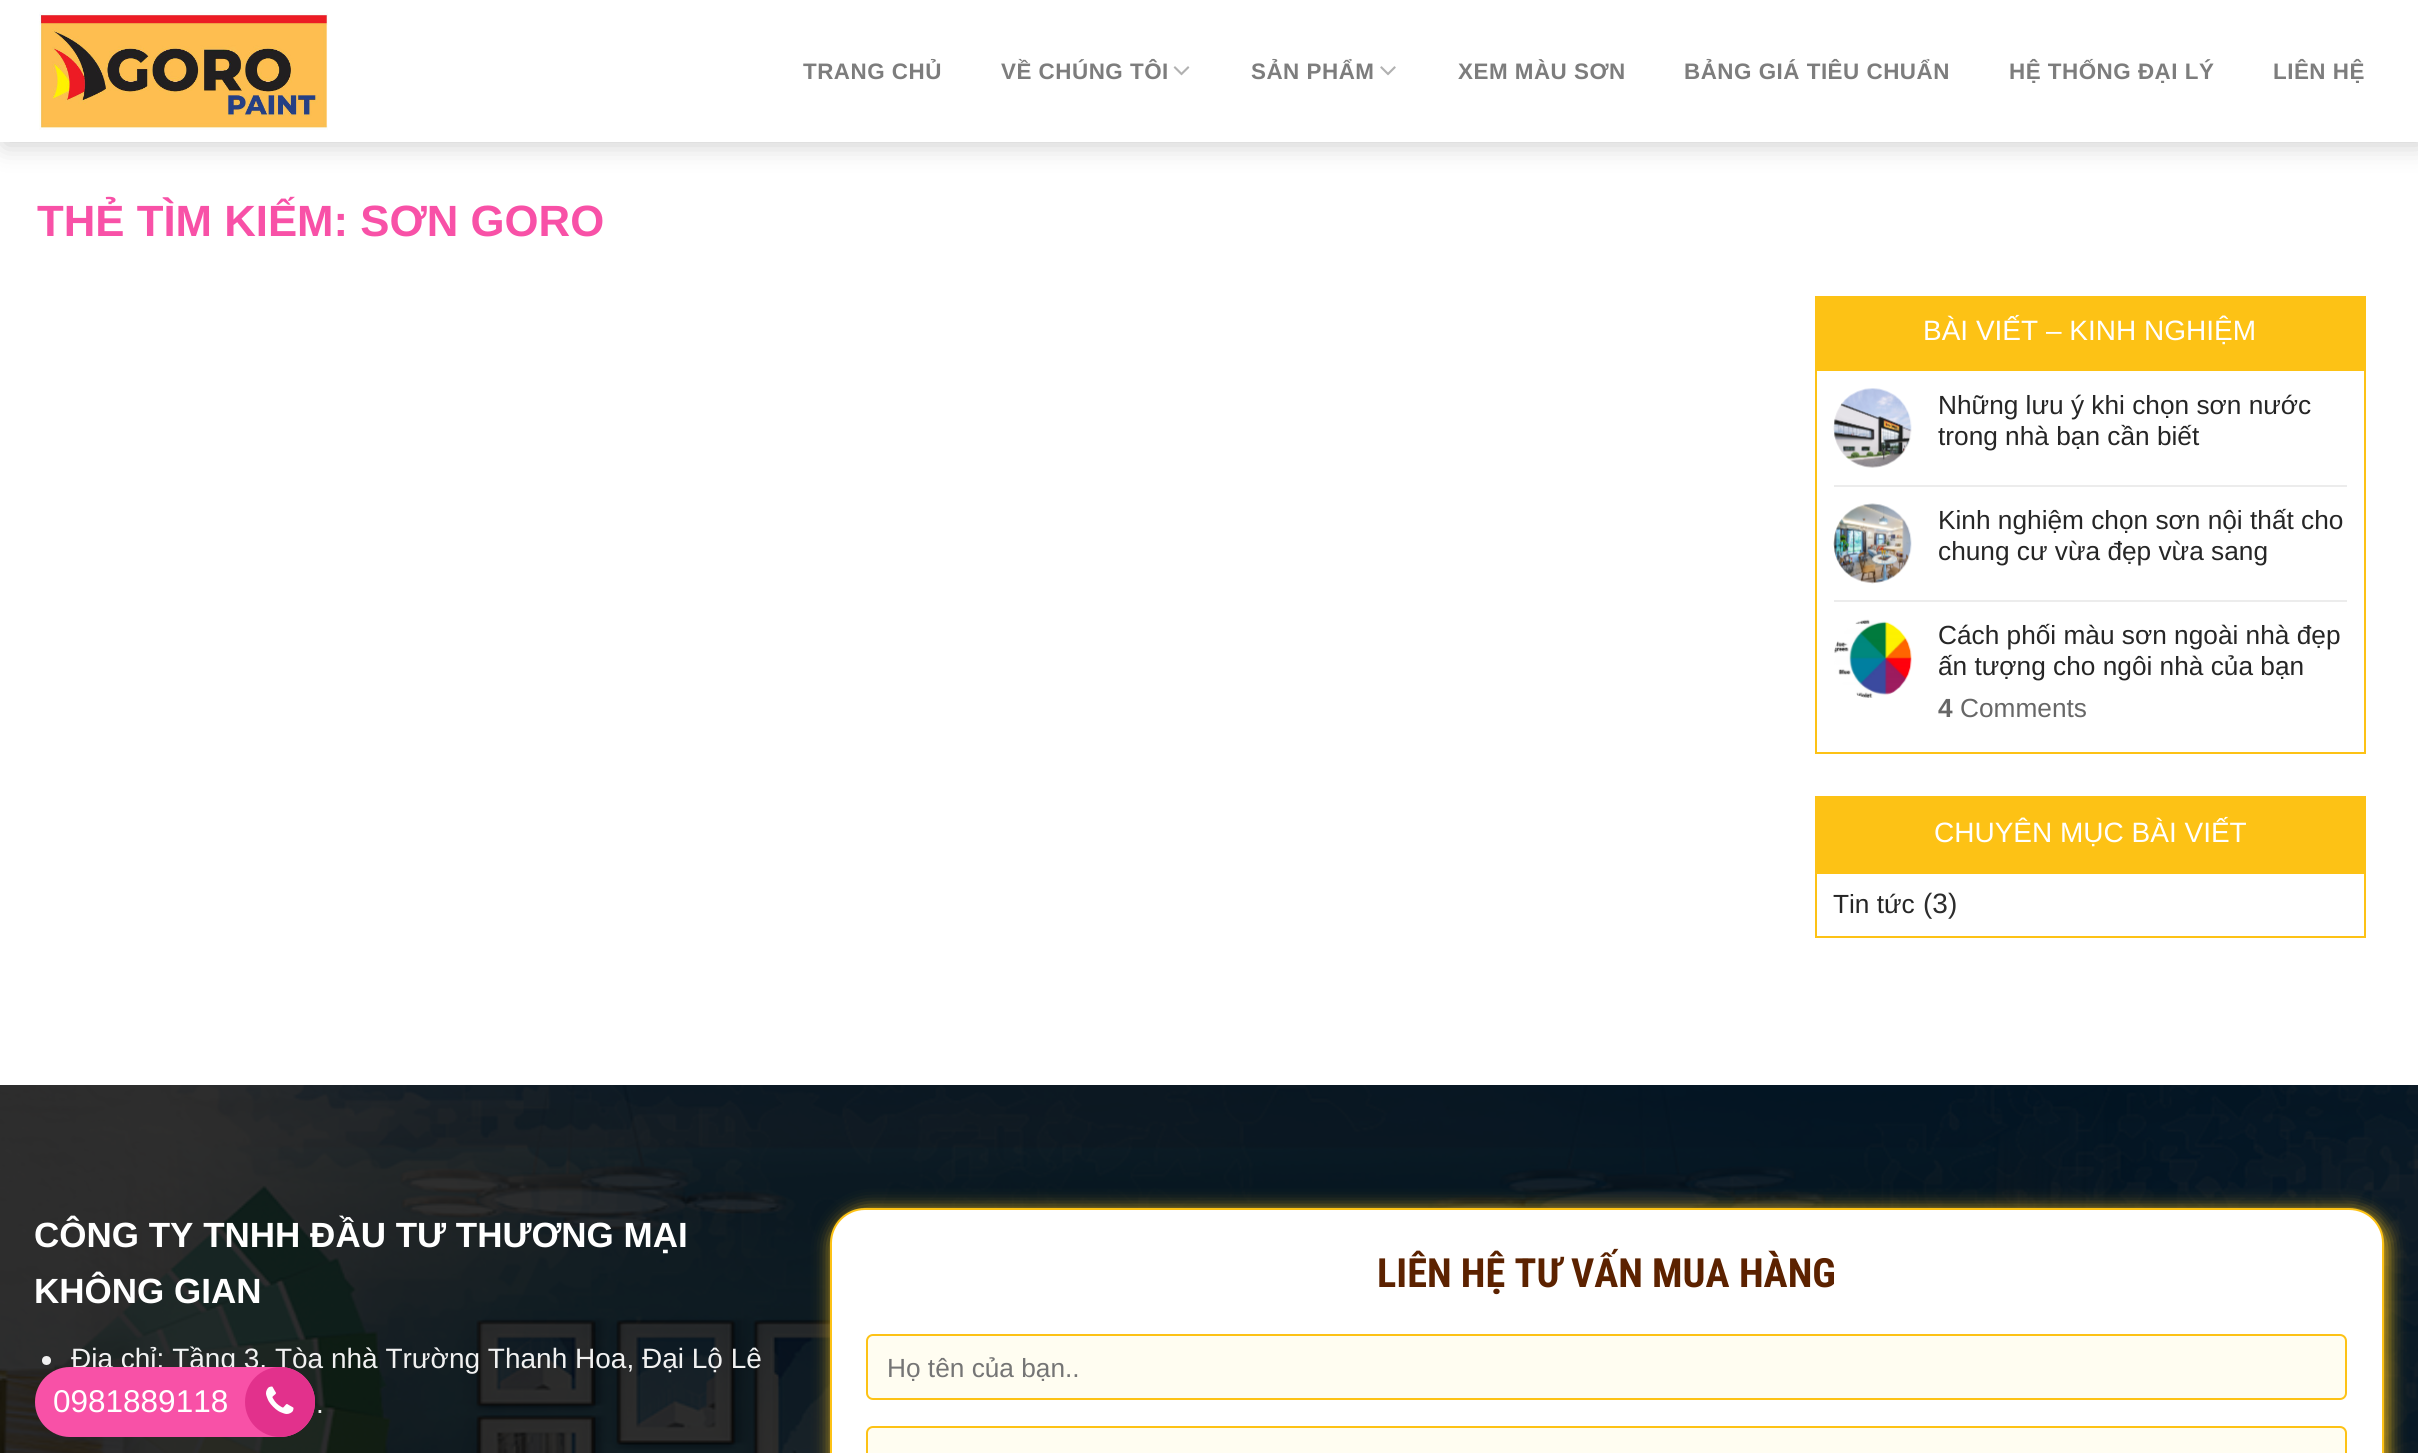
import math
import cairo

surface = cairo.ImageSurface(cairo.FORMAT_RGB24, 2418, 1453)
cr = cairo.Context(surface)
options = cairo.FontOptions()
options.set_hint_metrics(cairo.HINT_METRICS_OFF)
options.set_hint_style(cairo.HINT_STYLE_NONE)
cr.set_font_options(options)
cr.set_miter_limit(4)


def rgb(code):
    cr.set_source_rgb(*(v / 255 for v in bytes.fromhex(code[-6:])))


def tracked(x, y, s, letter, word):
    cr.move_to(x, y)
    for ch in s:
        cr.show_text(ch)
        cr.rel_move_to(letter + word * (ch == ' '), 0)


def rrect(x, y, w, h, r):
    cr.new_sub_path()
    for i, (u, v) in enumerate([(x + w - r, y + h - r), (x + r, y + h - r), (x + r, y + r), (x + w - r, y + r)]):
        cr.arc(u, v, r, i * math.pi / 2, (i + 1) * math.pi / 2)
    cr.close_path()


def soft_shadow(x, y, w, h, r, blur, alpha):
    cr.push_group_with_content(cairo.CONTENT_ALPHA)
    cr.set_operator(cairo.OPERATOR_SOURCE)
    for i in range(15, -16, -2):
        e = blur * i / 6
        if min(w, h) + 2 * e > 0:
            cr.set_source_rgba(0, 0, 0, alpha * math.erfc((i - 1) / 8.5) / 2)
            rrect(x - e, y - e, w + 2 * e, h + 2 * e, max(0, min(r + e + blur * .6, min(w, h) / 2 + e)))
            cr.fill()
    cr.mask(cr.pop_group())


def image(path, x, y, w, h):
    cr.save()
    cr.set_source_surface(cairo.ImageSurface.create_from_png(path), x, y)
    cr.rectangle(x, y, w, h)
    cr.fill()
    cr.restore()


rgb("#ffffff")
cr.paint()
cr.save()
cr.set_fill_rule(cairo.FILL_RULE_EVEN_ODD)
cr.new_path()
cr.move_to(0, 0)
cr.line_to(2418, 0)
cr.line_to(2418, 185)
cr.line_to(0, 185)
cr.close_path()
cr.move_to(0, 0)
cr.line_to(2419, 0)
cr.line_to(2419, 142)
cr.line_to(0, 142)
cr.close_path()
cr.clip()
rgb("#000000")
soft_shadow(4, 4, 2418, 141, 0, 13, 0.2)
cr.restore()
image("img/1.png", 39, 12, 289, 118)
image("img/2.png", 1173, 66, 17, 10)
image("img/3.png", 1380, 66, 16, 10)
rgb("#fdc215")
cr.rectangle(1815, 296, 551, 73)
cr.fill()
cr.rectangle(1816, 370, 549, 383)
cr.stroke()
image("img/4.png", 1833, 388, 79, 80)
rgb("#ececec")
cr.rectangle(1834, 485, 513, 2)
cr.fill()
image("img/5.png", 1833, 503, 79, 81)
cr.rectangle(1834, 600, 513, 2)
cr.fill()
image("img/6.png", 1834, 619, 78, 79)
rgb("#fdc215")
cr.rectangle(1815, 796, 551, 76)
cr.fill()
cr.rectangle(1816, 873, 549, 64)
cr.stroke()
image("img/7.png", 0, 1085, 2418, 368)
rgb("#f1f1f1")
cr.arc(46.5, 1360.5, 4.5, 0, 2 * math.pi)
cr.fill()
rgb("#fdc215")
soft_shadow(833, 1211, 1554, 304, 35, 9, 1)
rgb("#ffffff")
rrect(831, 1209, 1552, 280, 34)
cr.fill_preserve()
rgb("#fdc215")
cr.stroke()
rgb("#fffdf1")
rrect(867, 1335, 1479, 64, 6)
cr.fill_preserve()
rgb("#fdc215")
cr.stroke()
rgb("#fffdf1")
rrect(867, 1427, 1479, 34, 6)
cr.fill_preserve()
rgb("#fdc215")
cr.stroke()
cr.select_font_face("Liberation Sans", cairo.FONT_SLANT_NORMAL, cairo.FONT_WEIGHT_BOLD)
cr.set_font_size(22.4)
rgb("#7d7d7d")
for x, y, s in [
    (803, 79, "TRANG CHỦ"),
    (1001, 79, "VỀ CHÚNG TÔI"),
    (1251, 79, "SẢN PHẨM"),
    (1458, 79, "XEM MÀU SƠN"),
    (1684, 79, "BẢNG GIÁ TIÊU CHUẨN"),
    (2009, 79, "HỆ THỐNG ĐẠI LÝ"),
    (2273, 79, "LIÊN HỆ"),
]:
    tracked(x, y, s, 0.5, 0)
cr.set_font_size(43.75)
rgb("#f851a7")
cr.move_to(37, 236)
cr.show_text("THẺ TÌM KIẾM: SƠN GORO")
cr.select_font_face("Liberation Sans")
cr.set_font_size(28)
rgb("#ffffff")
cr.move_to(1923, 340)
cr.show_text("BÀI VIẾT – KINH NGHIỆM")
cr.set_font_size(26.25)
rgb("#262626")
for x, y, s in [
    (1938, 414, "Những lưu ý khi chọn sơn nước"),
    (1938, 445, "trong nhà bạn cần biết"),
    (1938, 529, "Kinh nghiệm chọn sơn nội thất cho"),
    (1938, 560, "chung cư vừa đẹp vừa sang"),
    (1938, 644, "Cách phối màu sơn ngoài nhà đẹp"),
    (1938, 675, "ấn tượng cho ngôi nhà của bạn"),
]:
    cr.move_to(x, y)
    cr.show_text(s)
cr.select_font_face("Liberation Sans", cairo.FONT_SLANT_NORMAL, cairo.FONT_WEIGHT_BOLD)
rgb("#676767")
cr.move_to(1938, 717)
cr.show_text("4")
cr.select_font_face("Liberation Sans")
cr.move_to(1960, 717)
cr.show_text("Comments")
cr.set_font_size(28)
rgb("#ffffff")
cr.move_to(1934, 842)
cr.show_text("CHUYÊN MỤC BÀI VIẾT")
cr.set_font_size(26.25)
rgb("#262626")
cr.move_to(1833, 913)
cr.show_text("Tin tức")
cr.set_font_size(28)
rgb("#2d2d2d")
cr.move_to(1923, 913)
cr.show_text("(3)")
cr.select_font_face("Liberation Sans", cairo.FONT_SLANT_NORMAL, cairo.FONT_WEIGHT_BOLD)
cr.set_font_size(35)
rgb("#ffffff")
cr.move_to(34, 1247)
cr.show_text("CÔNG TY TNHH ĐẦU TƯ THƯƠNG MẠI")
cr.move_to(34, 1303)
cr.show_text("KHÔNG GIAN")
cr.select_font_face("Liberation Sans")
cr.set_font_size(28)
rgb("#f1f1f1")
cr.move_to(71, 1368)
cr.show_text("Địa chỉ: Tầng 3, Tòa nhà Trường Thanh Hoa, Đại Lộ Lê")
cr.move_to(316, 1413)
cr.show_text(".")
cr.select_font_face("Roboto Condensed", cairo.FONT_SLANT_NORMAL, cairo.FONT_WEIGHT_BOLD)
cr.set_font_size(40.25)
rgb("#5c2200")
cr.move_to(1377, 1287)
cr.show_text("LIÊN HỆ TƯ VẤN MUA HÀNG")
cr.select_font_face("Liberation Sans")
cr.set_font_size(26.25)
rgb("#757575")
cr.move_to(887, 1377)
cr.show_text("Họ tên của bạn..")
rgb("#f851a7")
rrect(35, 1367, 280, 70, 35)
cr.fill()
cr.set_font_size(31.5)
rgb("#ffffff")
cr.move_to(53, 1412)
cr.show_text("0981889118")
rgb("#e2318c")
cr.new_path()
cr.arc(280, 1402, 35, 0, 2 * math.pi)
cr.fill()
image("img/8.png", 266, 1386, 28, 28)
surface.write_to_png("page.png")
